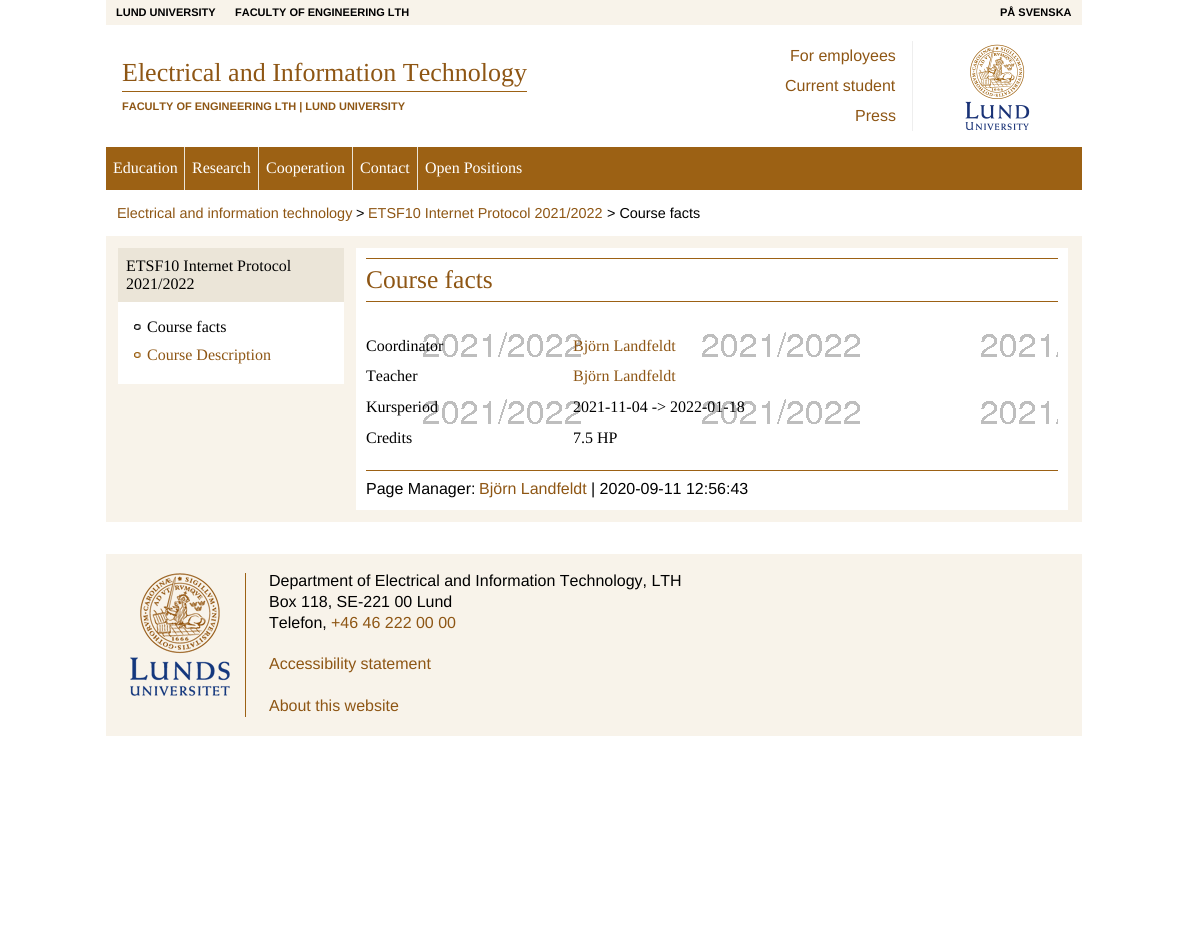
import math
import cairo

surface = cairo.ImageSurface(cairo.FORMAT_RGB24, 1187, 929)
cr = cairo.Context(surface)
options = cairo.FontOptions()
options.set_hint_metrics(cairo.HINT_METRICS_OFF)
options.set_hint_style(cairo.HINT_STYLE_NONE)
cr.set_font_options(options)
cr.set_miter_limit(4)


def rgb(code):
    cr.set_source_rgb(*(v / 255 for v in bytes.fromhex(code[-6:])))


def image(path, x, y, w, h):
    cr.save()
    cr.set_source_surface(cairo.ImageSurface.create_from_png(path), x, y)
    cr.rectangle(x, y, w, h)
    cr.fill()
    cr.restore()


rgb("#ffffff")
cr.paint()
for x, y, w, h, color in [
    (106, 0, 976, 25, "#f8f3ea"),
    (122, 91, 405, 1, "#9c6114"),
    (912, 41, 1, 90, "#eeeeee"),
]:
    rgb(color)
    cr.rectangle(x, y, w, h)
    cr.fill()
image("img/1.png", 965, 44, 65, 87)
for x, y, w, h, color in [
    (106, 147, 976, 43, "#9c6114"),
    (184, 147, 1, 43, "#ebe5d8"),
    (258, 147, 1, 43, "#ebe5d8"),
    (352, 147, 1, 43, "#ebe5d8"),
    (417, 147, 1, 43, "#ebe5d8"),
    (106, 236, 976, 286, "#f8f3ea"),
    (118, 248, 226, 54, "#ebe5d8"),
    (118, 302, 226, 82, "#ffffff"),
]:
    rgb(color)
    cr.rectangle(x, y, w, h)
    cr.fill()
image("img/2.png", 134, 324, 7, 6)
image("img/3.png", 134, 352, 7, 6)
for x, y, w, h, color in [
    (356, 248, 712, 262, "#ffffff"),
    (366, 258, 692, 1, "#9c6114"),
    (366, 301, 692, 1, "#9c6114"),
]:
    rgb(color)
    cr.rectangle(x, y, w, h)
    cr.fill()
image("img/4.png", 423, 332, 635, 92)
cr.rectangle(366, 470, 692, 1)
cr.fill()
rgb("#f8f3ea")
cr.rectangle(106, 554, 976, 182)
cr.fill()
image("img/5.png", 130, 573, 100, 123)
rgb("#9c6114")
cr.rectangle(245, 573, 1, 144)
cr.fill()
cr.select_font_face("Liberation Sans", cairo.FONT_SLANT_NORMAL, cairo.FONT_WEIGHT_BOLD)
cr.set_font_size(11)
rgb("#000000")
for x, y, s in [
    (116, 16, "LUND UNIVERSITY"),
    (235, 16, "FACULTY OF ENGINEERING LTH"),
    (1000, 16, "PÅ SVENSKA"),
]:
    cr.move_to(x, y)
    cr.show_text(s)
cr.select_font_face("Liberation Serif")
cr.set_font_size(26)
rgb("#8e5614")
cr.move_to(122, 81)
cr.show_text("Electrical and Information Technology")
cr.select_font_face("Liberation Sans", cairo.FONT_SLANT_NORMAL, cairo.FONT_WEIGHT_BOLD)
cr.set_font_size(11)
cr.move_to(122, 110)
cr.show_text("FACULTY OF ENGINEERING LTH | LUND UNIVERSITY")
cr.select_font_face("Liberation Sans")
cr.set_font_size(16)
for x, y, s in [
    (790, 61, "For employees"),
    (785, 91, "Current student"),
    (855, 121, "Press"),
]:
    cr.move_to(x, y)
    cr.show_text(s)
cr.select_font_face("Liberation Serif")
rgb("#ffffff")
for x, y, s in [
    (113, 173, "Education"),
    (192, 173, "Research"),
    (266, 173, "Cooperation"),
    (360, 173, "Contact"),
    (425, 173, "Open Positions"),
]:
    cr.move_to(x, y)
    cr.show_text(s)
cr.select_font_face("Liberation Sans")
cr.set_font_size(14.4)
rgb("#8e5614")
cr.move_to(117, 218)
cr.show_text("Electrical and information technology")
rgb("#000000")
cr.move_to(356, 218)
cr.show_text(">")
rgb("#8e5614")
cr.move_to(368, 218)
cr.show_text("ETSF10 Internet Protocol 2021/2022")
rgb("#000000")
cr.move_to(607, 218)
cr.show_text("> Course facts")
cr.select_font_face("Liberation Serif")
cr.set_font_size(16)
for x, y, s in [
    (126, 271, "ETSF10 Internet Protocol"),
    (126, 289, "2021/2022"),
    (147, 332, "Course facts"),
]:
    cr.move_to(x, y)
    cr.show_text(s)
rgb("#8e5614")
cr.move_to(147, 360)
cr.show_text("Course Description")
cr.set_font_size(25.5)
cr.move_to(366, 288)
cr.show_text("Course facts")
cr.set_font_size(16)
rgb("#000000")
cr.move_to(366, 351)
cr.show_text("Coordinator")
rgb("#8e5614")
cr.move_to(573, 351)
cr.show_text("Björn Landfeldt")
rgb("#000000")
cr.move_to(366, 381)
cr.show_text("Teacher")
rgb("#8e5614")
cr.move_to(573, 381)
cr.show_text("Björn Landfeldt")
rgb("#000000")
for x, y, s in [
    (366, 412, "Kursperiod"),
    (573, 412, "2021-11-04 -> 2022-01-18"),
    (366, 443, "Credits"),
    (573, 443, "7.5 HP"),
]:
    cr.move_to(x, y)
    cr.show_text(s)
cr.select_font_face("Liberation Sans")
cr.move_to(366, 494)
cr.show_text("Page Manager:")
rgb("#8e5614")
cr.move_to(479, 494)
cr.show_text("Björn Landfeldt")
rgb("#000000")
for x, y, s in [
    (591, 494, "| 2020-09-11 12:56:43"),
    (269, 586, "Department of Electrical and Information Technology, LTH"),
    (269, 607, "Box 118, SE-221 00 Lund"),
    (269, 628, "Telefon,"),
]:
    cr.move_to(x, y)
    cr.show_text(s)
rgb("#8e5614")
for x, y, s in [
    (331, 628, "+46 46 222 00 00"),
    (269, 669, "Accessibility statement"),
    (269, 711, "About this website"),
]:
    cr.move_to(x, y)
    cr.show_text(s)
surface.write_to_png("page.png")
